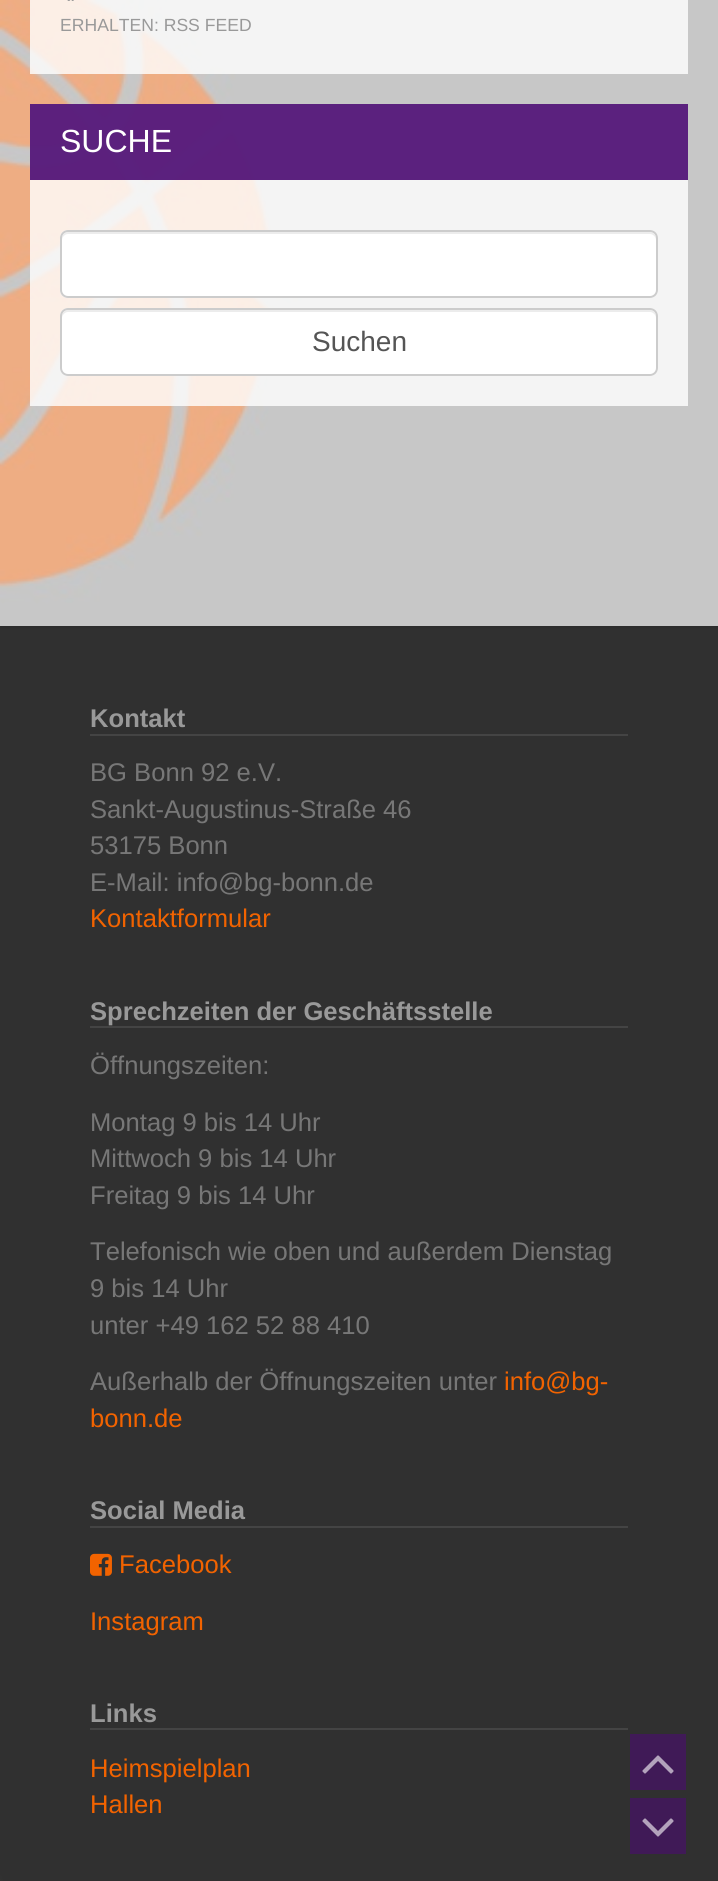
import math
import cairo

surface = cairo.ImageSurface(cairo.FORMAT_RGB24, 718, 1881)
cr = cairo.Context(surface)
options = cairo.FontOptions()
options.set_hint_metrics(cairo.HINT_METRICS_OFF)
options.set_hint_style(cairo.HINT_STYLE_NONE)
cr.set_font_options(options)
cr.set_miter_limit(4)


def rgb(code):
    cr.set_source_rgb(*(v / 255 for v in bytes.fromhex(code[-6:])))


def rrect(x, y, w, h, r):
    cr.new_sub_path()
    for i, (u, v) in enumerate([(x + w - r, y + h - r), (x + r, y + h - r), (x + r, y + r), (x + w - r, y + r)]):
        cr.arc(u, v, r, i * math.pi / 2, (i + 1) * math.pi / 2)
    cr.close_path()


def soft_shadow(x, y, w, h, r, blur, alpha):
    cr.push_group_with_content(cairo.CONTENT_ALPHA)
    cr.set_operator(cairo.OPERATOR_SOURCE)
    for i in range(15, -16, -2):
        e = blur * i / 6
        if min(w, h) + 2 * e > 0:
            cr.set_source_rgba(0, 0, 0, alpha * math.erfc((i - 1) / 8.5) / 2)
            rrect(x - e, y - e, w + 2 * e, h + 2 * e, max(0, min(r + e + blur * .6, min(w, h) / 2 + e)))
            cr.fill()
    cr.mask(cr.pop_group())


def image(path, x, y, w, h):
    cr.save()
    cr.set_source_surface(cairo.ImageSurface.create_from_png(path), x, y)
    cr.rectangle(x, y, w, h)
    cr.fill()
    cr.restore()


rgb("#ffffff")
cr.paint()
image("img/1.png", 0, 0, 718, 1881)
cr.save()
cr.rectangle(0, 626, 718, 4)
cr.clip()
rgb("#000000")
soft_shadow(0, -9, 718, 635, 0, 3, 0.2)
cr.restore()
cr.set_source_rgba(1, 1, 1, 0.4)
cr.rectangle(0, 0, 718, 626)
cr.fill()
cr.set_source_rgba(1, 1, 1, 0.8)
cr.rectangle(30, 0, 658, 74)
cr.fill()
image("img/2.png", 67, 0, 7, 1)
cr.rectangle(30, 104, 658, 302)
cr.fill()
cr.set_source_rgba(0.294, 0.043, 0.443, 0.9)
cr.rectangle(30, 104, 658, 76)
cr.fill()
rgb("#ffffff")
rrect(60, 230, 598, 68, 8)
cr.fill()
rgb("#ececec")
cr.new_path()
cr.move_to(68, 234)
cr.line_to(650, 234)
cr.curve_to(653, 234, 656, 237, 656, 240)
cr.line_to(656, 238)
cr.curve_to(656, 235, 653, 232, 650, 232)
cr.line_to(68, 232)
cr.curve_to(65, 232, 62, 235, 62, 238)
cr.line_to(62, 240)
cr.curve_to(62, 237, 65, 234, 68, 234)
cr.close_path()
cr.fill()
rrect(61, 231, 596, 66, 7)
rgb("#cccccc")
cr.stroke()
rgb("#ffffff")
rrect(60, 308, 598, 68, 8)
cr.fill()
rgb("#ececec")
cr.new_path()
cr.move_to(68, 312)
cr.line_to(650, 312)
cr.curve_to(653, 312, 656, 315, 656, 318)
cr.line_to(656, 316)
cr.curve_to(656, 313, 653, 310, 650, 310)
cr.line_to(68, 310)
cr.curve_to(65, 310, 62, 313, 62, 316)
cr.line_to(62, 318)
cr.curve_to(62, 315, 65, 312, 68, 312)
cr.close_path()
cr.fill()
rrect(61, 309, 596, 66, 7)
rgb("#cccccc")
cr.stroke()
cr.set_source_rgba(0, 0, 0, 0.7)
cr.rectangle(0, 626, 718, 1255)
cr.fill()
rgb("#444444")
cr.rectangle(90, 734, 538, 2)
cr.rectangle(90, 1026, 538, 2)
cr.rectangle(90, 1526, 538, 2)
cr.fill()
image("img/3.png", 90, 1553, 22, 23)
cr.rectangle(90, 1728, 538, 2)
cr.fill()
rgb("#401a57")
cr.rectangle(630, 1734, 56, 56)
cr.fill()
image("img/4.png", 642, 1755, 32, 19)
cr.rectangle(630, 1798, 56, 56)
cr.fill()
image("img/5.png", 642, 1818, 32, 19)
cr.select_font_face("Liberation Sans")
cr.set_font_size(17.6)
rgb("#999999")
cr.move_to(60, 31)
cr.show_text("ERHALTEN: RSS FEED")
cr.set_font_size(32)
rgb("#ffffff")
cr.move_to(60, 152)
cr.show_text("SUCHE")
cr.set_font_size(28)
rgb("#555555")
cr.move_to(312, 351)
cr.show_text("Suchen")
cr.select_font_face("Liberation Sans", cairo.FONT_SLANT_NORMAL, cairo.FONT_WEIGHT_BOLD)
cr.set_font_size(25.6)
rgb("#999999")
cr.move_to(90, 727)
cr.show_text("Kontakt")
cr.select_font_face("Liberation Sans")
rgb("#777777")
for x, y, s in [
    (90, 781, "BG Bonn 92 e.V."),
    (90, 818, "Sankt-Augustinus-Straße 46"),
    (90, 854, "53175 Bonn"),
    (90, 891, "E-Mail: info@bg-bonn.de"),
]:
    cr.move_to(x, y)
    cr.show_text(s)
rgb("#f26300")
cr.move_to(90, 927)
cr.show_text("Kontaktformular")
cr.select_font_face("Liberation Sans", cairo.FONT_SLANT_NORMAL, cairo.FONT_WEIGHT_BOLD)
rgb("#999999")
cr.move_to(90, 1020)
cr.show_text("Sprechzeiten der Geschäftsstelle")
cr.select_font_face("Liberation Sans")
rgb("#777777")
for x, y, s in [
    (90, 1074, "Öffnungszeiten:"),
    (90, 1131, "Montag 9 bis 14 Uhr"),
    (90, 1167, "Mittwoch 9 bis 14 Uhr"),
    (90, 1204, "Freitag 9 bis 14 Uhr"),
    (90, 1260, "Telefonisch wie oben und außerdem Dienstag"),
    (90, 1297, "9 bis 14 Uhr"),
    (90, 1334, "unter +49 162 52 88 410"),
    (90, 1390, "Außerhalb der Öffnungszeiten unter"),
]:
    cr.move_to(x, y)
    cr.show_text(s)
rgb("#f26300")
cr.move_to(504, 1390)
cr.show_text("info@bg-")
cr.move_to(90, 1427)
cr.show_text("bonn.de")
cr.select_font_face("Liberation Sans", cairo.FONT_SLANT_NORMAL, cairo.FONT_WEIGHT_BOLD)
rgb("#999999")
cr.move_to(90, 1519)
cr.show_text("Social Media")
cr.select_font_face("Liberation Sans")
rgb("#f26300")
cr.move_to(119, 1573)
cr.show_text("Facebook")
cr.move_to(90, 1630)
cr.show_text("Instagram")
cr.select_font_face("Liberation Sans", cairo.FONT_SLANT_NORMAL, cairo.FONT_WEIGHT_BOLD)
rgb("#999999")
cr.move_to(90, 1722)
cr.show_text("Links")
cr.select_font_face("Liberation Sans")
rgb("#f26300")
cr.move_to(90, 1777)
cr.show_text("Heimspielplan")
cr.move_to(90, 1813)
cr.show_text("Hallen")
surface.write_to_png("page.png")
